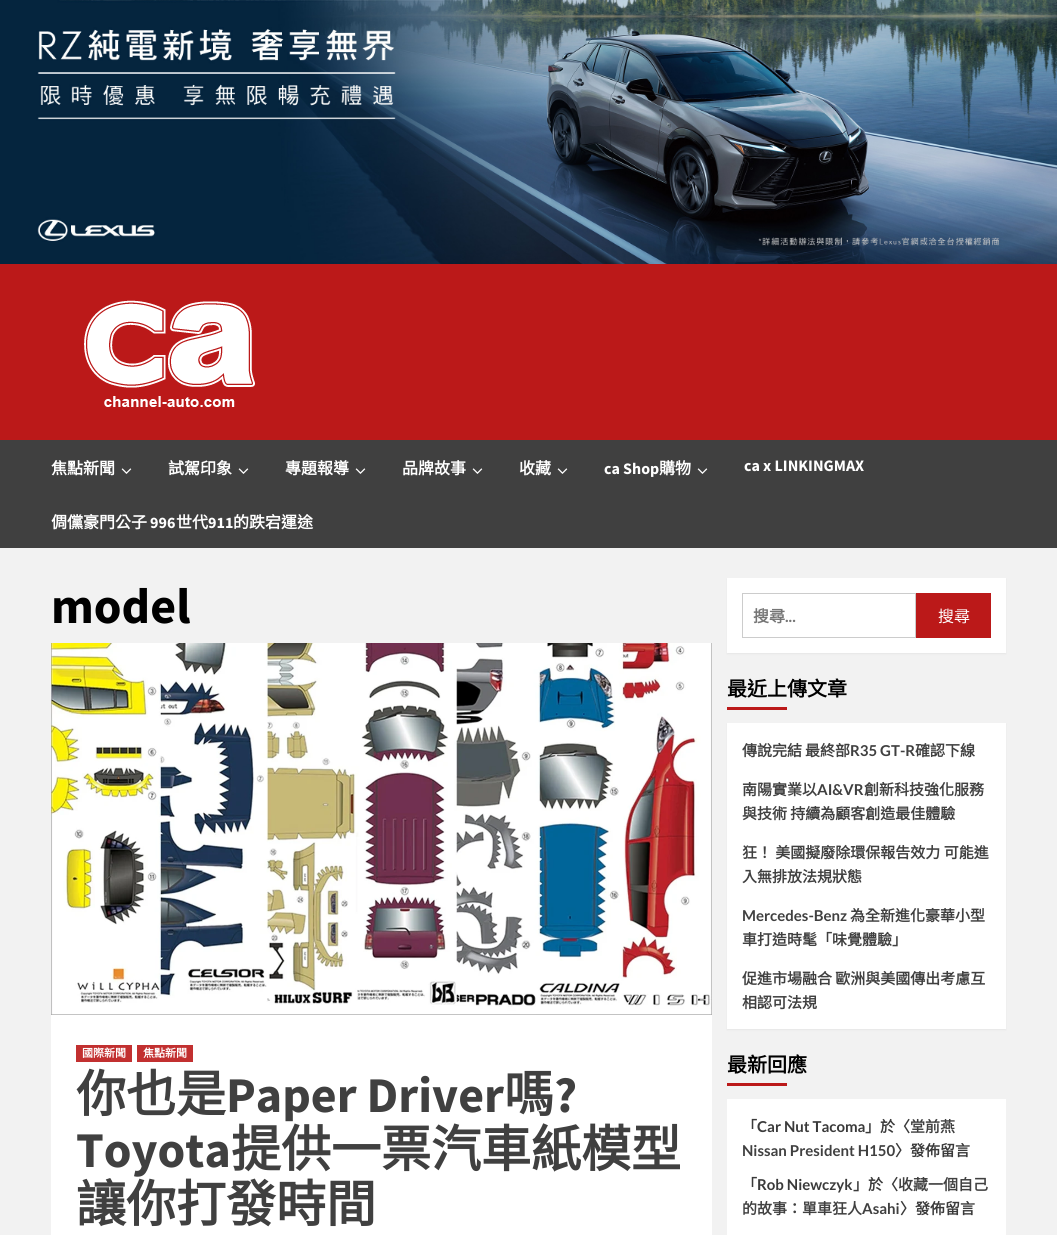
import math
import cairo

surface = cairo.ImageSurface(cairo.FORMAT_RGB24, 1057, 1235)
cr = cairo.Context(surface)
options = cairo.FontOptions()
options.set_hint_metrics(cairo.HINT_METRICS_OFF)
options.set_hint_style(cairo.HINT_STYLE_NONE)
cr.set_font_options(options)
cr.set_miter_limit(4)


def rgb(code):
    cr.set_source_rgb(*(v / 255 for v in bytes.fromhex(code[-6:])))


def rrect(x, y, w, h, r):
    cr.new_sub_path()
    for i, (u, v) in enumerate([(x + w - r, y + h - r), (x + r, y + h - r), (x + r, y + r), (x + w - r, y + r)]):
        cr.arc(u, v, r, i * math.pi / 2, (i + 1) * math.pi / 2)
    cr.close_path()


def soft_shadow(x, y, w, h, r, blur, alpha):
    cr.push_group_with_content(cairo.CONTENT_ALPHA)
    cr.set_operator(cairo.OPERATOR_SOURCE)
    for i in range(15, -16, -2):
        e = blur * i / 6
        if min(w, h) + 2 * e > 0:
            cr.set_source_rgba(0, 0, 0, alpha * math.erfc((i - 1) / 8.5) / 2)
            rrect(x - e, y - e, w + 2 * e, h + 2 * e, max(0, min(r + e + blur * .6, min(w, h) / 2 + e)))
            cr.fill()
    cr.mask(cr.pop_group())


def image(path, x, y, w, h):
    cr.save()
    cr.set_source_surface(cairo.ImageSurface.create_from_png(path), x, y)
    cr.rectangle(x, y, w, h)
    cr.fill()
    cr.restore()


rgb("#f2f2f2")
cr.paint()
image("img/1.png", 0, 0, 1057, 264)
rgb("#bb1919")
cr.rectangle(0, 264, 1057, 176)
cr.fill()
image("img/2.png", 84, 300, 171, 107)
rgb("#404040")
cr.rectangle(0, 440, 1057, 108)
cr.fill()
image("img/3.png", 121, 468, 11, 6)
image("img/3.png", 238, 468, 11, 6)
image("img/3.png", 355, 468, 11, 6)
image("img/3.png", 472, 468, 11, 6)
image("img/3.png", 557, 468, 11, 6)
image("img/3.png", 697, 468, 11, 6)
image("img/4.png", 51, 643, 661, 372)
for x, y, w, h, color in [
    (51, 1015, 661, 220, "#ffffff"),
    (76, 1045, 56, 17, "#c23030"),
    (137, 1045, 56, 17, "#c23030"),
]:
    rgb(color)
    cr.rectangle(x, y, w, h)
    cr.fill()
rgb("#000000")
soft_shadow(727, 579, 279, 75, 0, 1, 0.05)
rgb("#ffffff")
cr.rectangle(727, 578, 279, 75)
cr.fill()
cr.rectangle(742.5, 593.5, 173, 44)
rgb("#cccccc")
cr.set_line_width(1)
cr.stroke()
rgb("#bb1919")
cr.rectangle(916, 593, 75, 45)
cr.fill()
cr.rectangle(727, 707, 60, 3)
cr.fill()
rgb("#000000")
soft_shadow(727, 724, 279, 306, 0, 1, 0.05)
for x, y, w, h, color in [
    (727, 723, 279, 306, "#ffffff"),
    (727, 1083, 60, 3, "#bb1919"),
    (727, 1099, 279, 136, "#ffffff"),
]:
    rgb(color)
    cr.rectangle(x, y, w, h)
    cr.fill()
cr.select_font_face("Noto Sans CJK TC", cairo.FONT_SLANT_NORMAL, cairo.FONT_WEIGHT_BOLD)
cr.set_font_size(16)
for x, y, s in [
    (51, 474, "焦點新聞"),
    (168, 474, "試駕印象"),
    (285, 474, "專題報導"),
    (402, 474, "品牌故事"),
    (519, 474, "收藏"),
]:
    cr.move_to(x, y)
    cr.show_text(s)
cr.select_font_face("Source Sans Pro", cairo.FONT_SLANT_NORMAL, cairo.FONT_WEIGHT_BOLD)
cr.move_to(604, 474)
cr.show_text("ca Shop")
cr.select_font_face("Noto Sans CJK TC", cairo.FONT_SLANT_NORMAL, cairo.FONT_WEIGHT_BOLD)
cr.move_to(659, 474)
cr.show_text("購物")
cr.select_font_face("Source Sans Pro", cairo.FONT_SLANT_NORMAL, cairo.FONT_WEIGHT_BOLD)
cr.move_to(744, 471)
cr.show_text("ca x LINKINGMAX")
cr.select_font_face("Noto Sans CJK TC", cairo.FONT_SLANT_NORMAL, cairo.FONT_WEIGHT_BOLD)
cr.move_to(51, 528)
cr.show_text("倜儻豪門公子")
cr.select_font_face("Source Sans Pro", cairo.FONT_SLANT_NORMAL, cairo.FONT_WEIGHT_BOLD)
cr.move_to(150, 528)
cr.show_text("996")
cr.select_font_face("Noto Sans CJK TC", cairo.FONT_SLANT_NORMAL, cairo.FONT_WEIGHT_BOLD)
cr.move_to(176, 528)
cr.show_text("世代")
cr.select_font_face("Source Sans Pro", cairo.FONT_SLANT_NORMAL, cairo.FONT_WEIGHT_BOLD)
cr.move_to(208, 528)
cr.show_text("911")
cr.select_font_face("Noto Sans CJK TC", cairo.FONT_SLANT_NORMAL, cairo.FONT_WEIGHT_BOLD)
cr.move_to(233, 528)
cr.show_text("的跌宕運途")
cr.select_font_face("Source Sans Pro", cairo.FONT_SLANT_NORMAL, cairo.FONT_WEIGHT_BOLD)
cr.set_font_size(50)
rgb("#000000")
cr.move_to(51, 623)
cr.show_text("model")
cr.select_font_face("Noto Sans CJK TC", cairo.FONT_SLANT_NORMAL, cairo.FONT_WEIGHT_BOLD)
cr.set_font_size(11)
rgb("#ffffff")
cr.move_to(82, 1057)
cr.show_text("國際新聞")
cr.move_to(143, 1057)
cr.show_text("焦點新聞")
cr.set_font_size(50)
rgb("#404040")
cr.move_to(76, 1112)
cr.show_text("你也是")
cr.select_font_face("Source Sans Pro", cairo.FONT_SLANT_NORMAL, cairo.FONT_WEIGHT_BOLD)
cr.move_to(226, 1112)
cr.show_text("Paper Driver")
cr.select_font_face("Noto Sans CJK TC", cairo.FONT_SLANT_NORMAL, cairo.FONT_WEIGHT_BOLD)
cr.move_to(504, 1112)
cr.show_text("嗎")
cr.select_font_face("Source Sans Pro", cairo.FONT_SLANT_NORMAL, cairo.FONT_WEIGHT_BOLD)
cr.move_to(554, 1112)
cr.show_text("?")
cr.move_to(76, 1167)
cr.show_text("Toyota")
cr.select_font_face("Noto Sans CJK TC", cairo.FONT_SLANT_NORMAL, cairo.FONT_WEIGHT_BOLD)
cr.move_to(231, 1167)
cr.show_text("提供一票汽車紙模型")
cr.move_to(76, 1222)
cr.show_text("讓你打發時間")
cr.set_font_size(16)
rgb("#757575")
cr.move_to(753, 622)
cr.show_text("搜尋")
cr.select_font_face("Lato", cairo.FONT_SLANT_NORMAL, cairo.FONT_WEIGHT_BOLD)
cr.move_to(785, 622)
cr.show_text("...")
cr.select_font_face("Noto Sans CJK TC")
rgb("#ffffff")
cr.move_to(938, 622)
cr.show_text("搜尋")
cr.select_font_face("Noto Sans CJK TC", cairo.FONT_SLANT_NORMAL, cairo.FONT_WEIGHT_BOLD)
cr.set_font_size(20)
rgb("#000000")
cr.move_to(727, 696)
cr.show_text("最近上傳文章")
cr.set_font_size(15)
rgb("#404040")
cr.move_to(742, 756)
cr.show_text("傳說完結")
cr.move_to(805, 756)
cr.show_text("最終部")
cr.select_font_face("Lato", cairo.FONT_SLANT_NORMAL, cairo.FONT_WEIGHT_BOLD)
cr.move_to(850, 756)
cr.show_text("R35 GT-R")
cr.select_font_face("Noto Sans CJK TC", cairo.FONT_SLANT_NORMAL, cairo.FONT_WEIGHT_BOLD)
cr.move_to(915, 756)
cr.show_text("確認下線")
cr.move_to(742, 795)
cr.show_text("南陽實業以")
cr.select_font_face("Lato", cairo.FONT_SLANT_NORMAL, cairo.FONT_WEIGHT_BOLD)
cr.move_to(817, 795)
cr.show_text("AI&VR")
cr.select_font_face("Noto Sans CJK TC", cairo.FONT_SLANT_NORMAL, cairo.FONT_WEIGHT_BOLD)
for x, y, s in [
    (864, 795, "創新科技強化服務"),
    (742, 819, "與技術 持續為顧客創造最佳體驗"),
    (742, 858, "狂！ 美國擬廢除環保報告效力 可能進"),
    (742, 882, "入無排放法規狀態"),
]:
    cr.move_to(x, y)
    cr.show_text(s)
cr.select_font_face("Lato", cairo.FONT_SLANT_NORMAL, cairo.FONT_WEIGHT_BOLD)
cr.move_to(742, 921)
cr.show_text("Mercedes-Benz")
cr.select_font_face("Noto Sans CJK TC", cairo.FONT_SLANT_NORMAL, cairo.FONT_WEIGHT_BOLD)
for x, y, s in [
    (850, 921, "為全新進化豪華小型"),
    (742, 945, "車打造時髦「味覺體驗」"),
    (742, 984, "促進市場融合 歐洲與美國傳出考慮互"),
    (742, 1008, "相認可法規"),
]:
    cr.move_to(x, y)
    cr.show_text(s)
cr.set_font_size(20)
rgb("#000000")
cr.move_to(727, 1072)
cr.show_text("最新回應")
cr.set_font_size(15)
rgb("#3a3a3a")
cr.move_to(742, 1132)
cr.show_text("「")
cr.select_font_face("Lato", cairo.FONT_SLANT_NORMAL, cairo.FONT_WEIGHT_BOLD)
cr.move_to(757, 1132)
cr.show_text("Car Nut Tacoma")
cr.select_font_face("Noto Sans CJK TC", cairo.FONT_SLANT_NORMAL, cairo.FONT_WEIGHT_BOLD)
cr.move_to(865, 1132)
cr.show_text("」於〈")
rgb("#404040")
cr.move_to(910, 1132)
cr.show_text("堂前燕")
cr.select_font_face("Lato", cairo.FONT_SLANT_NORMAL, cairo.FONT_WEIGHT_BOLD)
cr.move_to(742, 1156)
cr.show_text("Nissan President H150")
cr.select_font_face("Noto Sans CJK TC", cairo.FONT_SLANT_NORMAL, cairo.FONT_WEIGHT_BOLD)
rgb("#3a3a3a")
cr.move_to(895, 1156)
cr.show_text("〉發佈留言")
cr.move_to(742, 1190)
cr.show_text("「")
cr.select_font_face("Lato", cairo.FONT_SLANT_NORMAL, cairo.FONT_WEIGHT_BOLD)
cr.move_to(757, 1190)
cr.show_text("Rob Niewczyk")
cr.select_font_face("Noto Sans CJK TC", cairo.FONT_SLANT_NORMAL, cairo.FONT_WEIGHT_BOLD)
cr.move_to(853, 1190)
cr.show_text("」於〈")
rgb("#404040")
cr.move_to(898, 1190)
cr.show_text("收藏一個自己")
cr.move_to(742, 1214)
cr.show_text("的故事：單車狂人")
cr.select_font_face("Lato", cairo.FONT_SLANT_NORMAL, cairo.FONT_WEIGHT_BOLD)
cr.move_to(862, 1214)
cr.show_text("Asahi")
cr.select_font_face("Noto Sans CJK TC", cairo.FONT_SLANT_NORMAL, cairo.FONT_WEIGHT_BOLD)
rgb("#3a3a3a")
cr.move_to(900, 1214)
cr.show_text("〉發佈留言")
surface.write_to_png("page.png")
